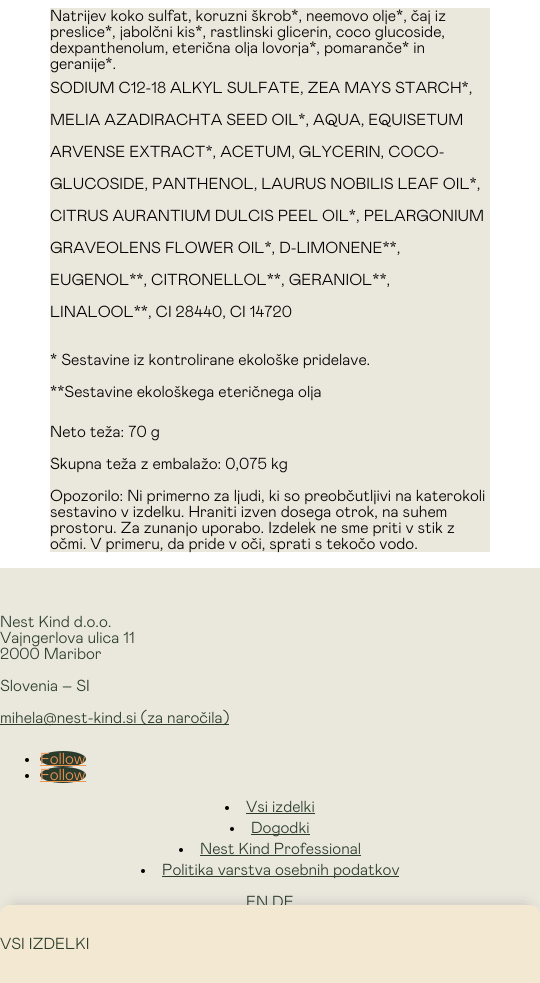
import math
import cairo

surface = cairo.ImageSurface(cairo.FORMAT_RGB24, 540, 983)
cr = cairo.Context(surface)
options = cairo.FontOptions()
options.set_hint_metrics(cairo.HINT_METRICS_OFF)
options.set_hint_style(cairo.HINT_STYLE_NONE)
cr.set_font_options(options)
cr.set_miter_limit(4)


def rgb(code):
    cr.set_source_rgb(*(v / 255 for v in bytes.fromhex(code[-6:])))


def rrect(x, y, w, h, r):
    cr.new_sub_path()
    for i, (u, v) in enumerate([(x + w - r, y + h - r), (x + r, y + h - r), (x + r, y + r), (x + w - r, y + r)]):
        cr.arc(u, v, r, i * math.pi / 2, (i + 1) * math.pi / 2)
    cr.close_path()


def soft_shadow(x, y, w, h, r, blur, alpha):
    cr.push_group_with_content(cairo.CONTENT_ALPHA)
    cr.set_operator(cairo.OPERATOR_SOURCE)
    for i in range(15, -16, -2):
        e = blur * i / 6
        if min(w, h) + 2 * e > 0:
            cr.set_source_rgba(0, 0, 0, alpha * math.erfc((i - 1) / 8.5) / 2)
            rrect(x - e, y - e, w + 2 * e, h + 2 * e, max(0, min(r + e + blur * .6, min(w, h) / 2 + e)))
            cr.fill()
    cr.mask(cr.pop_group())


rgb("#ffffff")
cr.paint()
for x, y, w, h, color in [
    (50, 8, 440, 544, "#eae8dd"),
    (0, 568, 540, 347, "#eae8dd"),
    (0, 724, 229, 1, "#2b3c2d"),
]:
    rgb(color)
    cr.rectangle(x, y, w, h)
    cr.fill()
rgb("#000000")
cr.arc(27, 760, 2, 0, 2 * math.pi)
cr.fill()
rgb("#2b3c2d")
cr.new_path()
cr.move_to(63, 751)
cr.curve_to(75.5, 751, 86, 754.5, 86, 759)
cr.curve_to(86, 763.5, 75.5, 767, 63, 767)
cr.curve_to(50.5, 767, 40, 763.5, 40, 759)
cr.curve_to(40, 754.5, 50.5, 751, 63, 751)
cr.close_path()
cr.fill()
rgb("#ed9553")
cr.rectangle(40, 765, 46, 1)
cr.fill()
rgb("#000000")
cr.arc(27, 776, 2, 0, 2 * math.pi)
cr.fill()
rgb("#2b3c2d")
cr.new_path()
cr.move_to(63, 767)
cr.curve_to(75.5, 767, 86, 770.5, 86, 775)
cr.curve_to(86, 779.5, 75.5, 783, 63, 783)
cr.curve_to(50.5, 783, 40, 779.5, 40, 775)
cr.curve_to(40, 770.5, 50.5, 767, 63, 767)
cr.close_path()
cr.fill()
rgb("#ed9553")
cr.rectangle(40, 781, 46, 1)
cr.fill()
rgb("#000000")
cr.arc(227, 808, 2, 0, 2 * math.pi)
cr.fill()
rgb("#2b3c2d")
cr.rectangle(246, 813, 69, 1)
cr.fill()
rgb("#000000")
cr.arc(232, 829, 2, 0, 2 * math.pi)
cr.fill()
rgb("#2b3c2d")
cr.rectangle(251, 834, 59, 1)
cr.fill()
rgb("#000000")
cr.arc(181, 850, 2, 0, 2 * math.pi)
cr.fill()
rgb("#2b3c2d")
cr.rectangle(200, 855, 161, 1)
cr.fill()
rgb("#000000")
cr.arc(143, 871, 2, 0, 2 * math.pi)
cr.fill()
rgb("#2b3c2d")
cr.rectangle(162, 876, 237, 1)
cr.fill()
rgb("#000000")
soft_shadow(14, 910, 512, 50, 0, 9, 0.3)
cr.select_font_face("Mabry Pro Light")
cr.set_font_size(16)
rgb("#000000")
for x, y, s in [
    (50, 21, "Natrijev koko sulfat, koruzni škrob*, neemovo olje*, čaj iz"),
    (50, 37, "preslice*, jabolčni kis*, rastlinski glicerin, coco glucoside,"),
    (50, 53, "dexpanthenolum, eterična olja lovorja*, pomaranče* in"),
    (50, 69, "geranije*."),
    (50, 93, "SODIUM C12-18 ALKYL SULFATE, ZEA MAYS STARCH*,"),
    (50, 125, "MELIA AZADIRACHTA SEED OIL*, AQUA, EQUISETUM"),
    (50, 157, "ARVENSE EXTRACT*, ACETUM, GLYCERIN, COCO-"),
    (50, 189, "GLUCOSIDE, PANTHENOL, LAURUS NOBILIS LEAF OIL*,"),
    (50, 221, "CITRUS AURANTIUM DULCIS PEEL OIL*, PELARGONIUM"),
    (50, 253, "GRAVEOLENS FLOWER OIL*, D-LIMONENE**,"),
    (50, 285, "EUGENOL**, CITRONELLOL**, GERANIOL**,"),
    (50, 317, "LINALOOL**, CI 28440, CI 14720"),
    (50, 365, "* Sestavine iz kontrolirane ekološke pridelave."),
    (50, 397, "**Sestavine ekološkega eteričnega olja"),
    (50, 437, "Neto teža: 70 g"),
    (50, 469, "Skupna teža z embalažo: 0,075 kg"),
    (50, 501, "Opozorilo: Ni primerno za ljudi, ki so preobčutljivi na katerokoli"),
    (50, 517, "sestavino v izdelku. Hraniti izven dosega otrok, na suhem"),
    (50, 533, "prostoru. Za zunanjo uporabo. Izdelek ne sme priti v stik z"),
    (50, 549, "očmi. V primeru, da pride v oči, sprati s tekočo vodo."),
]:
    cr.move_to(x, y)
    cr.show_text(s)
rgb("#2b3c2d")
for x, y, s in [
    (0, 627, "Nest Kind d.o.o."),
    (0, 643, "Vajngerlova ulica 11"),
    (0, 659, "2000 Maribor"),
    (0, 691, "Slovenia – SI"),
    (0, 723, "mihela@nest-kind.si (za naročila)"),
]:
    cr.move_to(x, y)
    cr.show_text(s)
rgb("#ed9553")
cr.move_to(40, 764)
cr.show_text("Follow")
cr.move_to(40, 780)
cr.show_text("Follow")
rgb("#2b3c2d")
for x, y, s in [
    (246, 812, "Vsi izdelki"),
    (251, 833, "Dogodki"),
    (200, 854, "Nest Kind Professional"),
    (162, 875, "Politika varstva osebnih podatkov"),
    (246, 907, "EN DE"),
]:
    cr.move_to(x, y)
    cr.show_text(s)
rgb("#f3e9d2")
cr.new_path()
cr.move_to(10, 905)
cr.line_to(530, 905)
cr.curve_to(535.5, 905, 540, 909.5, 540, 915)
cr.line_to(540, 983)
cr.line_to(0, 983)
cr.line_to(0, 915)
cr.curve_to(0, 909.5, 4.5, 905, 10, 905)
cr.close_path()
cr.fill()
rgb("#2b3c2d")
cr.move_to(0, 949)
cr.show_text("VSI IZDELKI")
surface.write_to_png("page.png")
